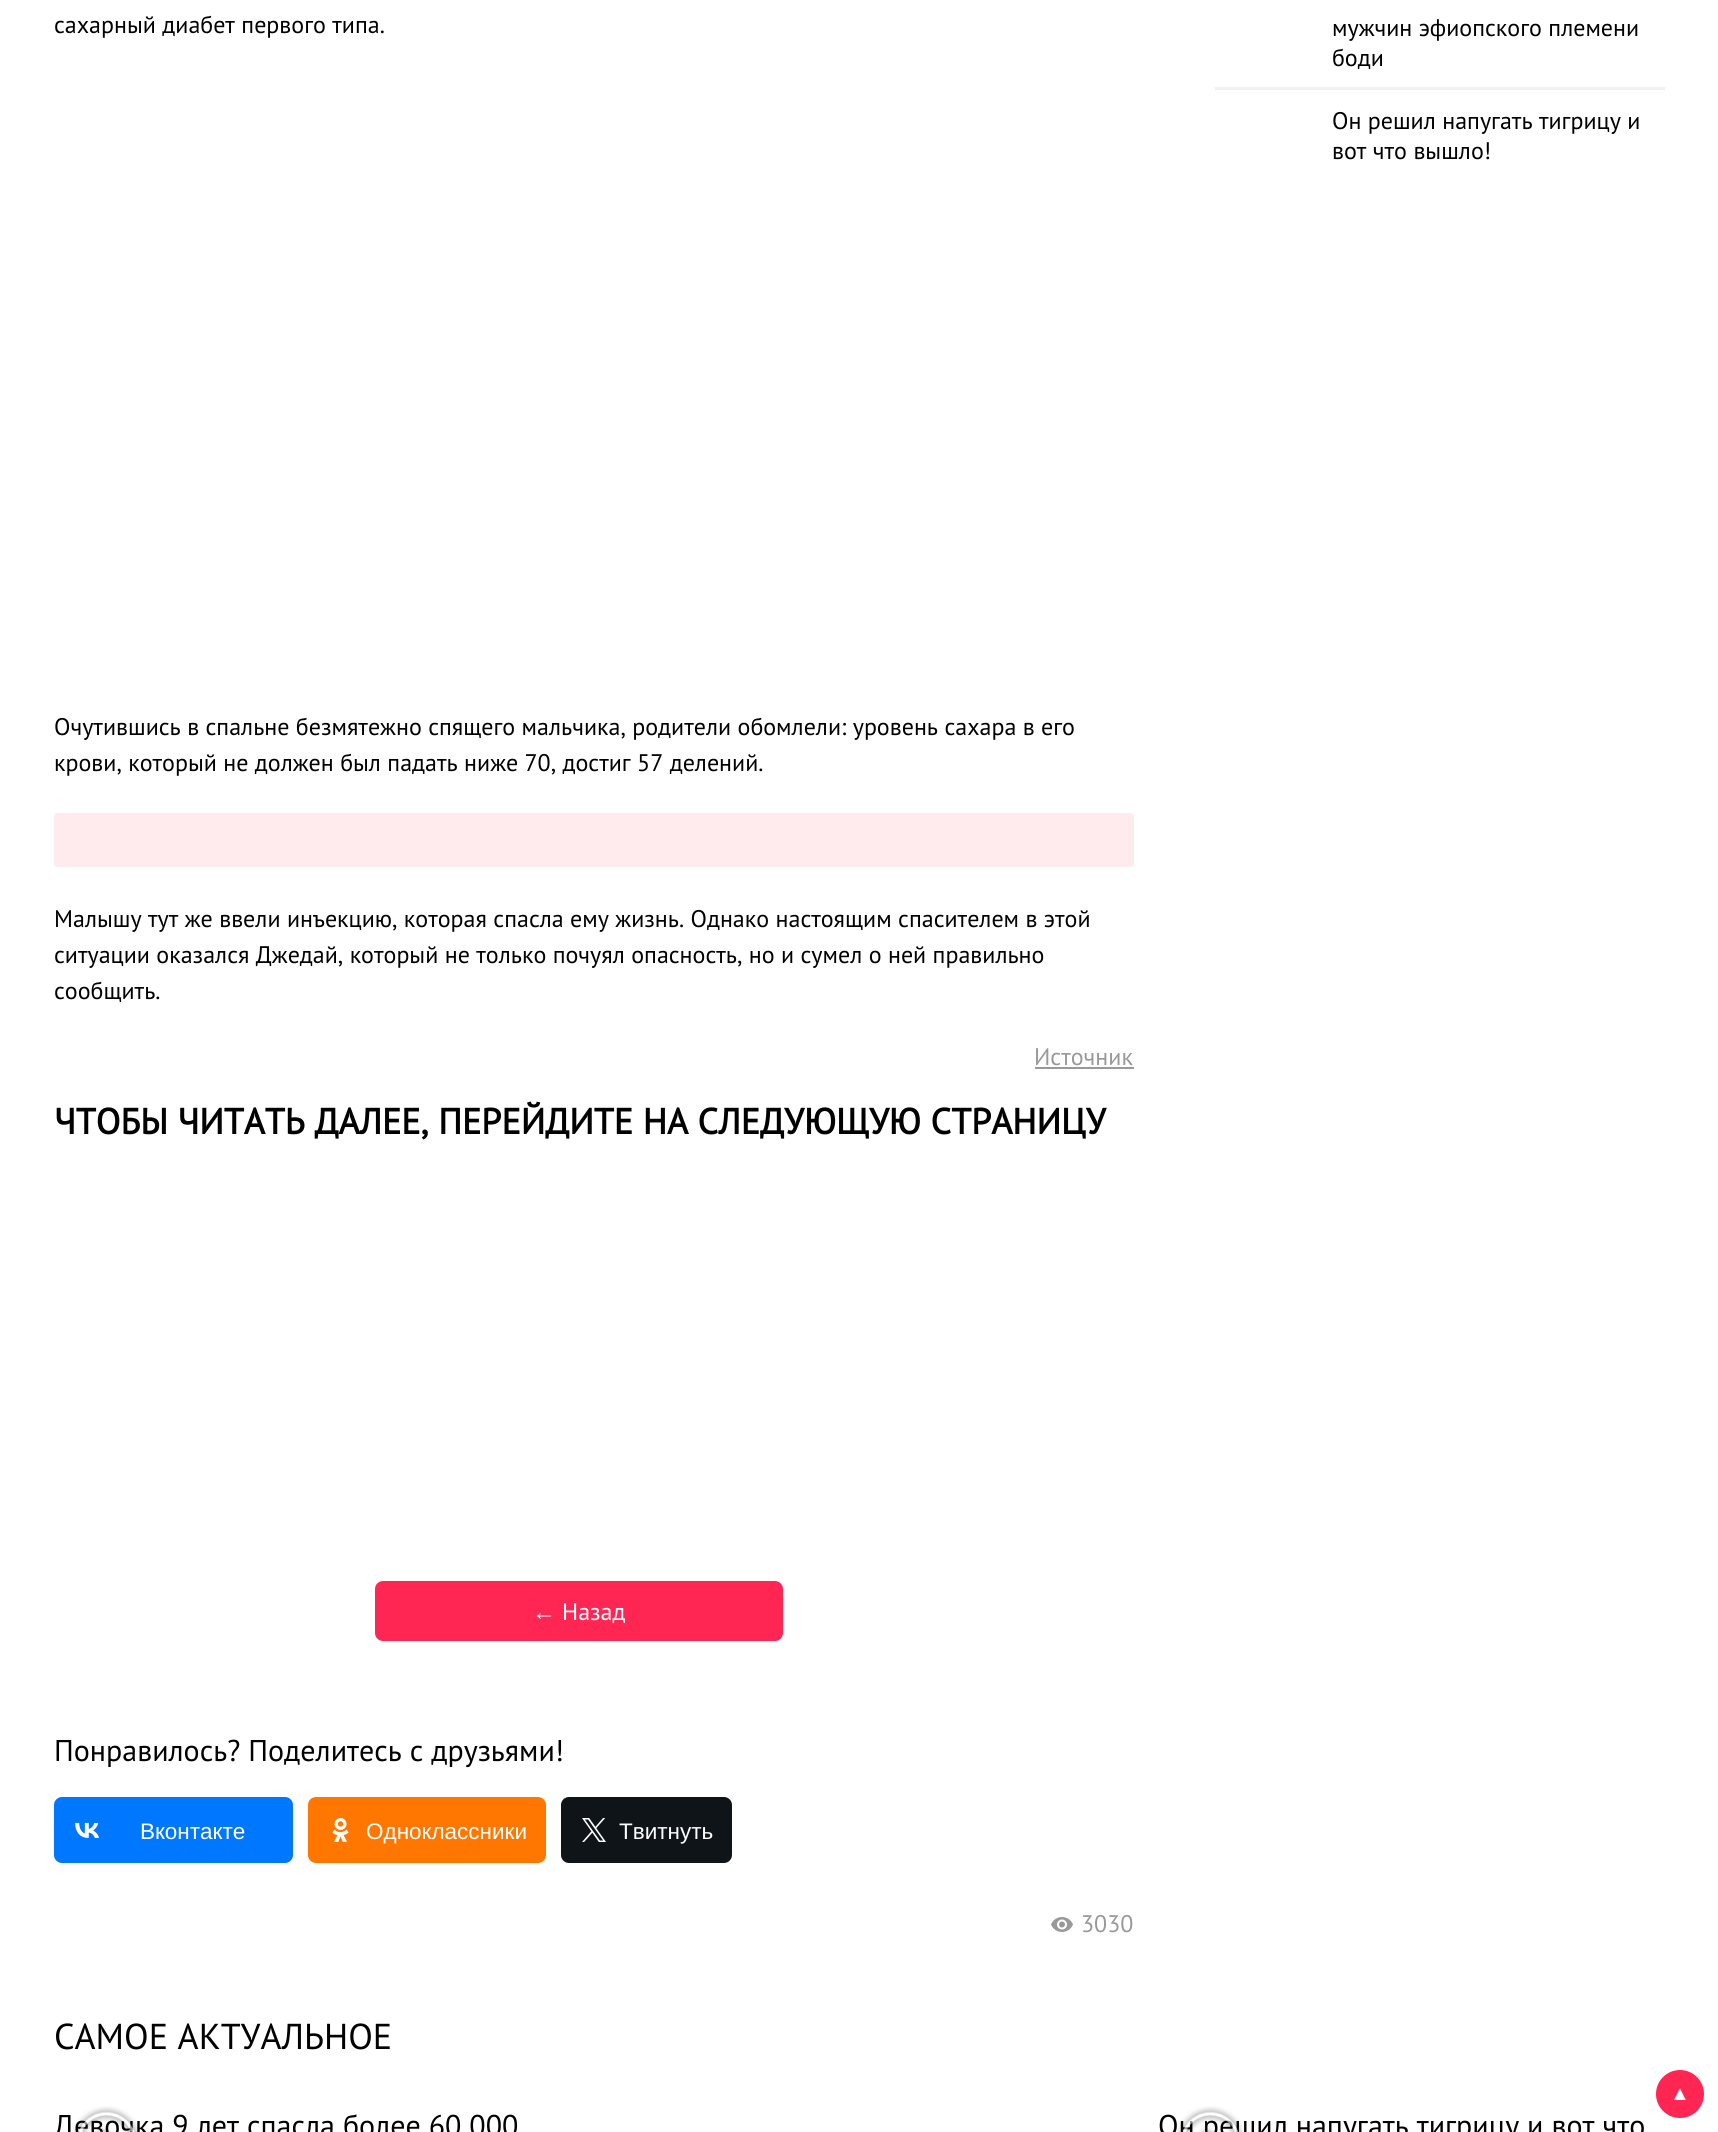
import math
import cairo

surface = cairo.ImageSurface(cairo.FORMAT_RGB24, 1718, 2132)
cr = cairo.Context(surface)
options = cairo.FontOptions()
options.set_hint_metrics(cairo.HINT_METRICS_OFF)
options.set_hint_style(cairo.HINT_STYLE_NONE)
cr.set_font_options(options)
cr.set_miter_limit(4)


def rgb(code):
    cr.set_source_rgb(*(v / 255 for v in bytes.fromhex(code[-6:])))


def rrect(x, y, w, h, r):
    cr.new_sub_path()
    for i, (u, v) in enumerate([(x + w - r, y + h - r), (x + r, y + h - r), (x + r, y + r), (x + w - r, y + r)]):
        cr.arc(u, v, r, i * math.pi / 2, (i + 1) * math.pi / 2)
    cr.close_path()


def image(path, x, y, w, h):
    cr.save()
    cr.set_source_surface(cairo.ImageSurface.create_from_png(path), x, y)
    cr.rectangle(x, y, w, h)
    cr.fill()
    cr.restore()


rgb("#ffffff")
cr.paint()
rgb("#ffebee")
rrect(54, 813, 1080, 54, 3)
cr.fill()
rgb("#999999")
cr.rectangle(1035, 1067, 99, 2)
cr.fill()
rgb("#ff2654")
rrect(375, 1581, 408, 60, 8)
cr.fill()
rgb("#0077ff")
rrect(54, 1797, 239, 66, 8)
cr.fill()
image("img/1.png", 75, 1822, 24, 16)
rgb("#ff7700")
rrect(308, 1797, 238, 66, 8)
cr.fill()
image("img/2.png", 332, 1818, 17, 24)
rgb("#0f1419")
rrect(561, 1797, 171, 66, 8)
cr.fill()
image("img/3.png", 582, 1818, 24, 24)
image("img/4.png", 1051, 1917, 22, 15)
rgb("#f1f1f1")
cr.rectangle(1215, 87, 450, 3)
cr.fill()
rgb("#ff2654")
cr.arc(1680, 2094, 24, 0, 2 * math.pi)
cr.fill()
cr.select_font_face("PT Sans")
cr.set_font_size(24)
rgb("#000000")
for x, y, s in [
    (54, 33, "сахарный диабет первого типа."),
    (54, 735, "Очутившись в спальне безмятежно спящего мальчика, родители обомлели: уровень сахара в его"),
    (54, 771, "крови, который не должен был падать ниже 70, достиг 57 делений."),
    (54, 927, "Малышу тут же ввели инъекцию, которая спасла ему жизнь. Однако настоящим спасителем в этой"),
    (54, 963, "ситуации оказался Джедай, который не только почуял опасность, но и сумел о ней правильно"),
    (54, 999, "сообщить."),
]:
    cr.move_to(x, y)
    cr.show_text(s)
rgb("#999999")
cr.move_to(1034, 1065)
cr.show_text("Источник")
cr.select_font_face("PT Sans", cairo.FONT_SLANT_NORMAL, cairo.FONT_WEIGHT_BOLD)
cr.set_font_size(36)
rgb("#000000")
cr.move_to(54, 1134)
cr.show_text("ЧТОБЫ ЧИТАТЬ ДАЛЕЕ, ПЕРЕЙДИТЕ НА СЛЕДУЮЩУЮ СТРАНИЦУ")
cr.select_font_face("Liberation Sans")
cr.set_font_size(24)
rgb("#ffffff")
cr.move_to(532, 1620)
cr.show_text("←")
cr.select_font_face("PT Sans")
cr.move_to(562, 1620)
cr.show_text("Назад")
cr.set_font_size(30)
rgb("#000000")
cr.move_to(54, 1761)
cr.show_text("Понравилось? Поделитесь с друзьями!")
cr.select_font_face("Liberation Sans")
cr.set_font_size(22.5)
rgb("#ffffff")
for x, y, s in [
    (140, 1839, "Вконтакте"),
    (366, 1839, "Одноклассники"),
    (619, 1839, "Твитнуть"),
]:
    cr.move_to(x, y)
    cr.show_text(s)
cr.select_font_face("PT Sans")
cr.set_font_size(24)
rgb("#999999")
cr.move_to(1081, 1932)
cr.show_text("3030")
rgb("#000000")
for x, y, s in [
    (1332, 36, "мужчин эфиопского племени"),
    (1332, 66, "боди"),
    (1332, 129, "Он решил напугать тигрицу и"),
    (1332, 159, "вот что вышло!"),
]:
    cr.move_to(x, y)
    cr.show_text(s)
cr.set_font_size(36)
cr.move_to(54, 2049)
cr.show_text("САМОЕ АКТУАЛЬНОЕ")
cr.set_font_size(30)
cr.move_to(54, 2136)
cr.show_text("Девочка 9 лет спасла более 60 000")
image("img/5.png", 73, 2106, 67, 26)
cr.move_to(1158, 2136)
cr.show_text("Он решил напугать тигрицу и вот что")
image("img/6.png", 1177, 2106, 67, 26)
cr.select_font_face("Liberation Sans")
cr.set_font_size(20)
rgb("#ffffff")
cr.move_to(1670, 2100)
cr.show_text("▲")
surface.write_to_png("page.png")
